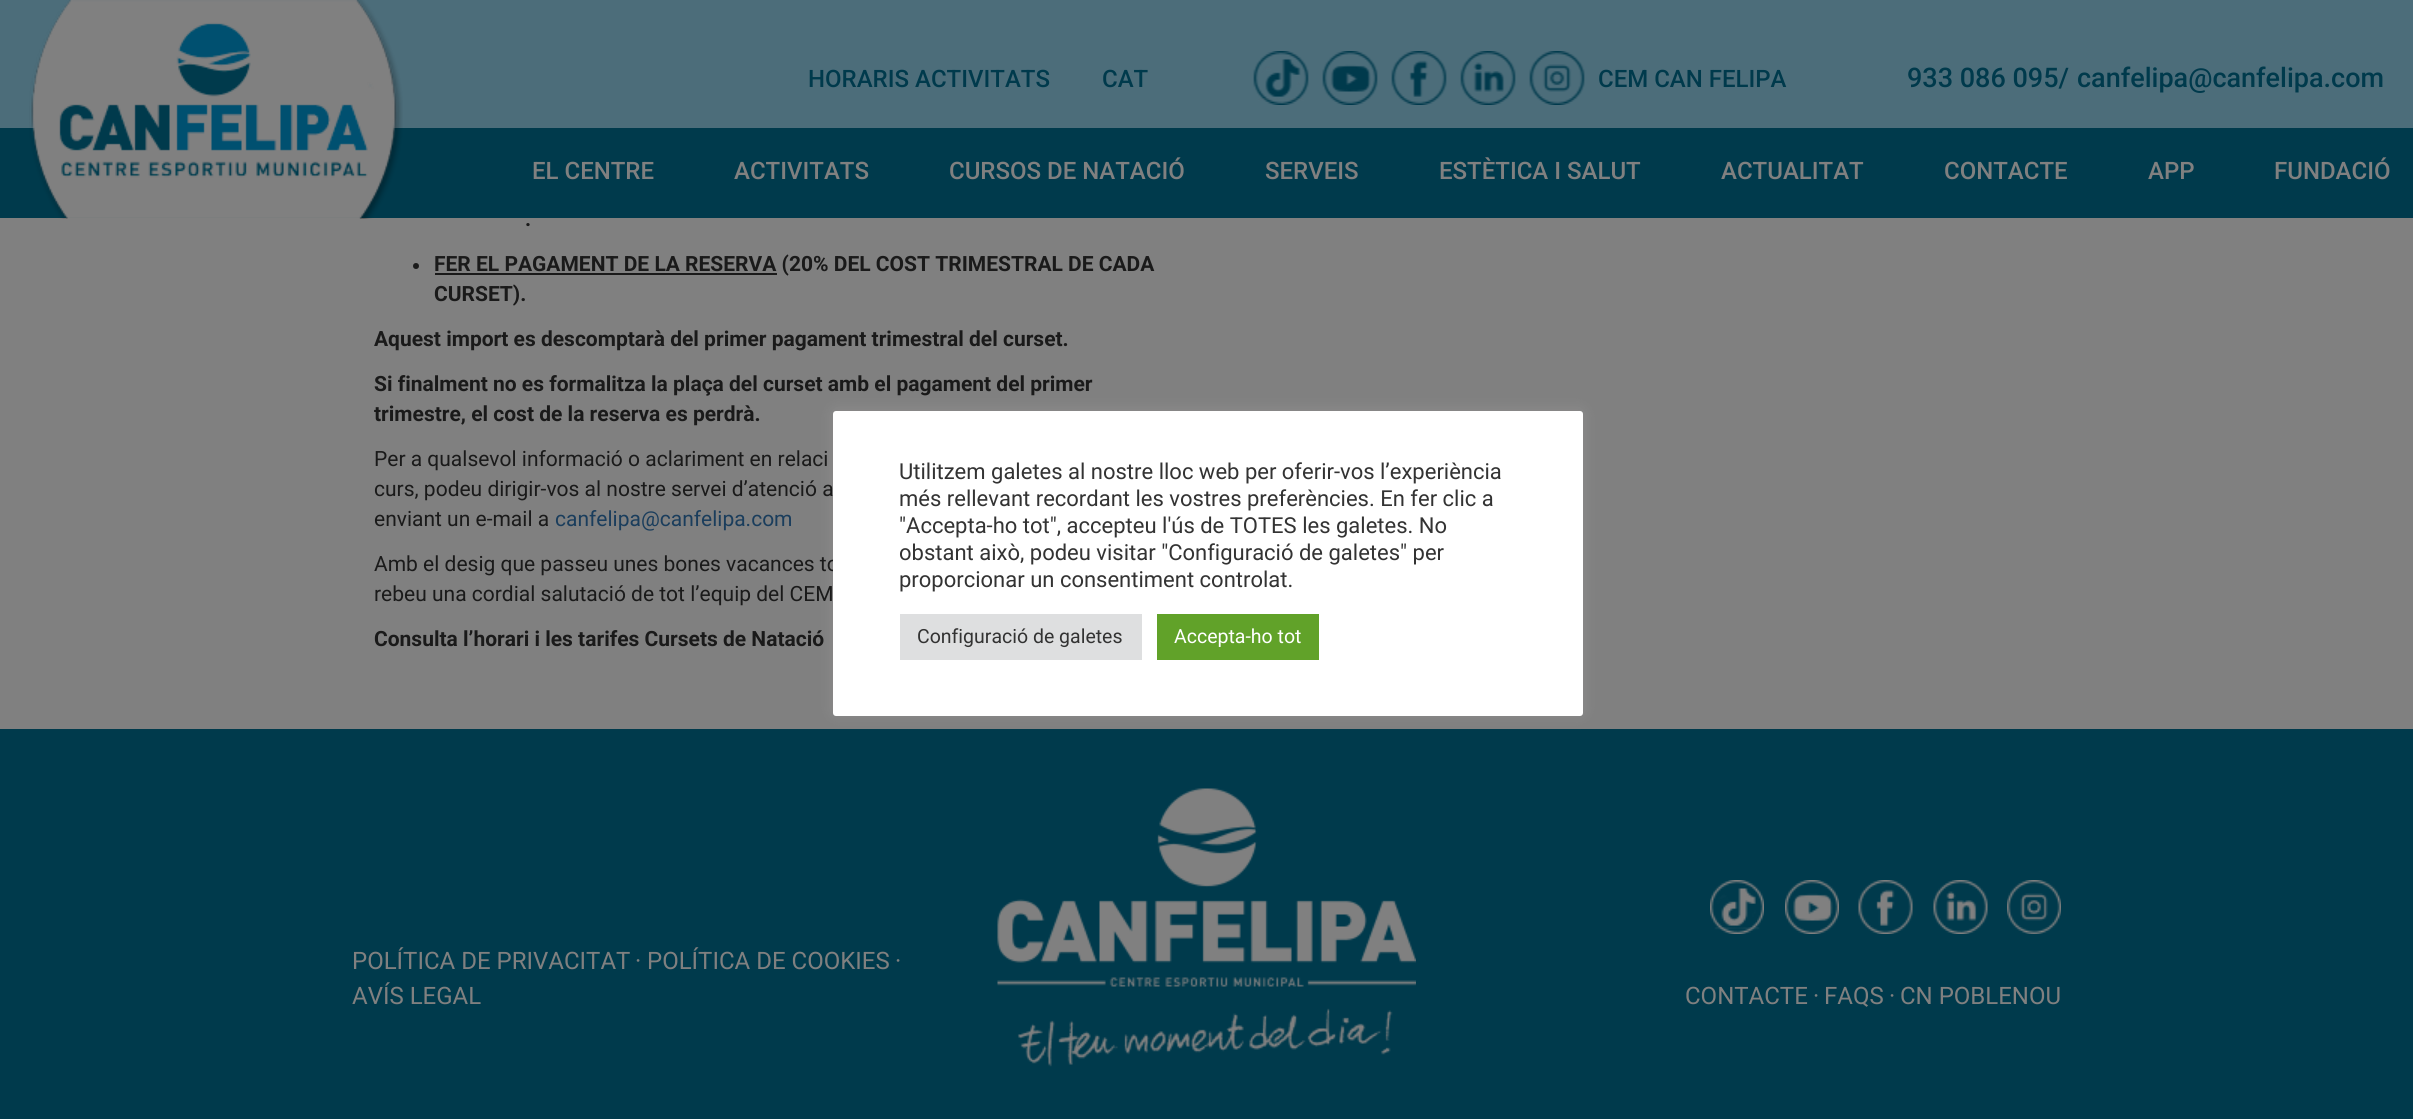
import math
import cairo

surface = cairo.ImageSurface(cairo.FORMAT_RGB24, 2413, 1119)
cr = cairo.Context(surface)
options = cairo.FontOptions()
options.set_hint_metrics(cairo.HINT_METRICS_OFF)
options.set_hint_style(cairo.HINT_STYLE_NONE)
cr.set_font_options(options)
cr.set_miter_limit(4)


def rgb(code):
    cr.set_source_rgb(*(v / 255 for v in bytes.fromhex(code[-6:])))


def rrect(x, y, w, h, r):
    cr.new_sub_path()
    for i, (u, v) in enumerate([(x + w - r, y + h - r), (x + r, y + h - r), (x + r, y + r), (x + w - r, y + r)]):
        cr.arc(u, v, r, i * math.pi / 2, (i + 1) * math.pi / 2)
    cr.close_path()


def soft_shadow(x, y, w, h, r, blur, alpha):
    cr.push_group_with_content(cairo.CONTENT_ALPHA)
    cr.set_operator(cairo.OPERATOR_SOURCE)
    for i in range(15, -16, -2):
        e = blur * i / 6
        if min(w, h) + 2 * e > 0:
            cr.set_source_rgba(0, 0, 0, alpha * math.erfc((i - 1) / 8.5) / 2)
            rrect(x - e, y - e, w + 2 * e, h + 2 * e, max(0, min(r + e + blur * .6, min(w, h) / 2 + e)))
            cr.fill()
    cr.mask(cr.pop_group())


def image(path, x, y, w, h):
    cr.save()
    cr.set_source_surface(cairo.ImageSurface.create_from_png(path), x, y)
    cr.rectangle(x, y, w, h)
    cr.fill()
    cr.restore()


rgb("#808080")
cr.paint()
rgb("#4c6d7a")
cr.rectangle(0, 0, 2413, 128)
cr.fill()
rgb("#003a4c")
cr.rectangle(0, 128, 2413, 90)
cr.fill()
image("img/1.png", 29, 0, 374, 219)
image("img/2.png", 1253, 51, 56, 54)
image("img/3.png", 1322, 51, 56, 54)
image("img/4.png", 1391, 51, 56, 54)
image("img/5.png", 1460, 51, 56, 54)
image("img/6.png", 1529, 51, 56, 54)
rgb("#1a1a1a")
cr.arc(416, 266, 3, 0, 2 * math.pi)
cr.fill()
cr.rectangle(435, 273, 342, 2)
cr.fill()
rgb("#003a4c")
cr.rectangle(0, 729, 2413, 390)
cr.fill()
rgb("#acabab")
soft_shadow(833, 410, 750, 304, 3, 7.5, 0.3)
image("img/7.png", 997, 788, 419, 279)
image("img/8.png", 1710, 880, 54, 54)
image("img/9.png", 1785, 880, 54, 54)
image("img/10.png", 1858, 880, 55, 54)
image("img/11.png", 1933, 880, 55, 54)
image("img/12.png", 2007, 880, 54, 54)
cr.select_font_face("Roboto Medium")
cr.set_font_size(24)
rgb("#003a4c")
for x, y, s in [
    (808, 87, "HORARIS ACTIVITATS"),
    (1102, 87, "CAT"),
    (1598, 87, "CEM CAN FELIPA"),
]:
    cr.move_to(x, y)
    cr.show_text(s)
cr.set_font_size(27)
cr.move_to(1907, 87)
cr.show_text("933 086 095/")
cr.move_to(2077, 87)
cr.show_text("canfelipa@canfelipa.com")
cr.set_font_size(24)
rgb("#808080")
for x, y, s in [
    (532, 179, "EL CENTRE"),
    (734, 179, "ACTIVITATS"),
    (949, 179, "CURSOS DE NATACIÓ"),
    (1265, 179, "SERVEIS"),
    (1439, 179, "ESTÈTICA I SALUT"),
    (1721, 179, "ACTUALITAT"),
    (1944, 179, "CONTACTE"),
    (2148, 179, "APP"),
    (2274, 179, "FUNDACIÓ"),
]:
    cr.move_to(x, y)
    cr.show_text(s)
cr.select_font_face("Roboto", cairo.FONT_SLANT_NORMAL, cairo.FONT_WEIGHT_BOLD)
cr.set_font_size(21)
rgb("#1a1a1a")
for x, y, s in [
    (525, 226, "."),
    (434, 271, "FER EL PAGAMENT DE LA RESERVA (20% DEL COST TRIMESTRAL DE CADA"),
    (434, 301, "CURSET)."),
    (374, 346, "Aquest import es descomptarà del primer pagament trimestral del curset."),
    (374, 391, "Si finalment no es formalitza la plaça del curset amb el pagament del primer"),
    (374, 421, "trimestre, el cost de la reserva es perdrà."),
]:
    cr.move_to(x, y)
    cr.show_text(s)
cr.select_font_face("Roboto")
for x, y, s in [
    (374, 466, "Per a qualsevol informació o aclariment en relaci"),
    (374, 496, "curs, podeu dirigir-vos al nostre servei d’atenció a"),
    (374, 526, "enviant un e-mail a"),
]:
    cr.move_to(x, y)
    cr.show_text(s)
rgb("#1a3d5c")
cr.move_to(555, 526)
cr.show_text("canfelipa@canfelipa.com")
rgb("#1a1a1a")
cr.move_to(374, 571)
cr.show_text("Amb el desig que passeu unes bones vacances to")
cr.move_to(374, 601)
cr.show_text("rebeu una cordial salutació de tot l’equip del CEM")
cr.select_font_face("Roboto", cairo.FONT_SLANT_NORMAL, cairo.FONT_WEIGHT_BOLD)
cr.move_to(374, 646)
cr.show_text("Consulta l’horari i les tarifes Cursets de Natació")
rgb("#ffffff")
rrect(833, 411, 750, 305, 3)
cr.fill()
cr.select_font_face("Roboto")
cr.set_font_size(22)
rgb("#333333")
for x, y, s in [
    (899, 479, "Utilitzem galetes al nostre lloc web per oferir-vos l’experiència"),
    (899, 506, "més rellevant recordant les vostres preferències. En fer clic a"),
    (899, 533, "\"Accepta-ho tot\", accepteu l'ús de TOTES les galetes. No"),
    (899, 560, "obstant això, podeu visitar \"Configuració de galetes\" per"),
    (899, 587, "proporcionar un consentiment controlat."),
]:
    cr.move_to(x, y)
    cr.show_text(s)
rgb("#dedfe0")
cr.rectangle(900, 614, 242, 46)
cr.fill()
cr.set_font_size(19.5)
rgb("#333333")
cr.move_to(917, 643)
cr.show_text("Configuració de galetes")
rgb("#61a229")
cr.rectangle(1157, 614, 162, 46)
cr.fill()
rgb("#ffffff")
cr.move_to(1174, 643)
cr.show_text("Accepta-ho tot")
cr.set_font_size(24)
rgb("#808080")
for x, y, s in [
    (352, 969, "POLÍTICA DE PRIVACITAT"),
    (635, 969, "·"),
    (647, 969, "POLÍTICA DE COOKIES"),
    (895, 969, "·"),
    (352, 1004, "AVÍS LEGAL"),
    (1685, 1004, "CONTACTE"),
    (1813, 1004, "·"),
    (1824, 1004, "FAQS"),
    (1889, 1004, "·"),
    (1900, 1004, "CN POBLENOU"),
]:
    cr.move_to(x, y)
    cr.show_text(s)
surface.write_to_png("page.png")
